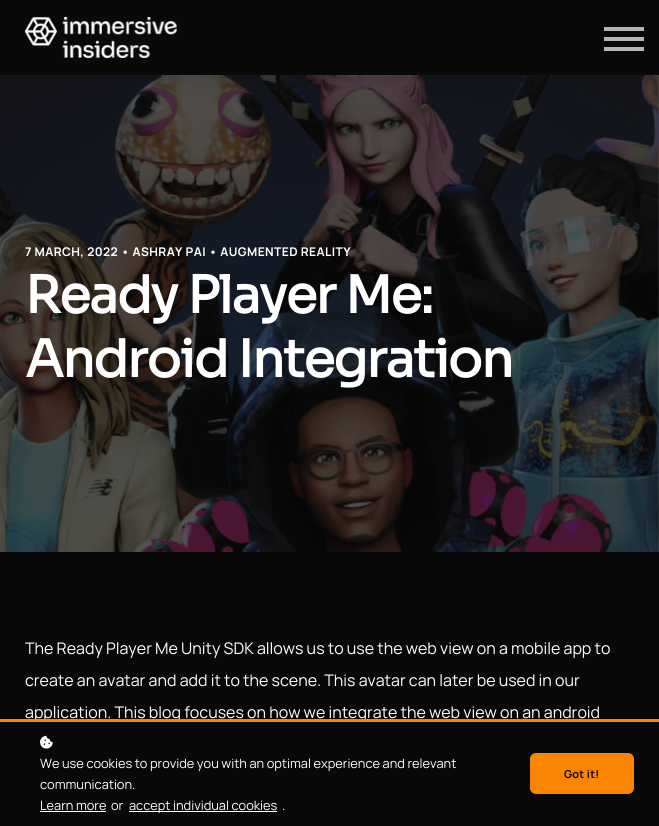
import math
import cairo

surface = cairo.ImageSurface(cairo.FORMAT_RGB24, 659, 826)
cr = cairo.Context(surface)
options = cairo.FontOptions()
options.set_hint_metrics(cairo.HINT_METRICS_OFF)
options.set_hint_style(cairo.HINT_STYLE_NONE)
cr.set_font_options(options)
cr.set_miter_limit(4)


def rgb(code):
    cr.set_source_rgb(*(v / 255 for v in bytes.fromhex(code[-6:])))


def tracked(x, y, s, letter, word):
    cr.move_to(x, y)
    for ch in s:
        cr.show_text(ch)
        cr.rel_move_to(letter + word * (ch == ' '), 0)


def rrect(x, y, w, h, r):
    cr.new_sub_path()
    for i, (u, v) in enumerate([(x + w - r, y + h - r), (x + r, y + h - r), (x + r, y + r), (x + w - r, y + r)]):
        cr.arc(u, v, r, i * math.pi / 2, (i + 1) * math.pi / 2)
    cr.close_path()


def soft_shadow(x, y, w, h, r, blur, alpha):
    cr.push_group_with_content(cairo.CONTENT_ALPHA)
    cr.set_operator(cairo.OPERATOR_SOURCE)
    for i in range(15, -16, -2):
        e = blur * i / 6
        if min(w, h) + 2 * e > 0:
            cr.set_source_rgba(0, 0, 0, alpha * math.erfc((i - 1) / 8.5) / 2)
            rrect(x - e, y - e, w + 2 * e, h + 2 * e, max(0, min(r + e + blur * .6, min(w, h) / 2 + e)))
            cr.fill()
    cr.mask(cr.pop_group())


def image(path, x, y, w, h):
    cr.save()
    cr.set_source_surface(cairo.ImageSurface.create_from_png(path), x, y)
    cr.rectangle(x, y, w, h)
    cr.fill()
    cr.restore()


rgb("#ffffff")
cr.paint()
image("img/2.png", 0, 75, 659, 477)
rgb("#000000")
soft_shadow(0, 0, 659, 75, 0, 7.5, 0.05)
rgb("#090909")
cr.rectangle(0, 0, 659, 75)
cr.fill()
image("img/1.png", 25, 17, 152, 41)
for x, y, w, h, color in [
    (604, 47, 40, 4, "#b4b4b4"),
    (604, 27, 40, 4, "#b4b4b4"),
    (604, 37, 40, 4, "#b4b4b4"),
    (0, 552, 659, 167, "#090909"),
]:
    rgb(color)
    cr.rectangle(x, y, w, h)
    cr.fill()
rgb("#000000")
soft_shadow(0, 719, 659, 107, 0, 10, 0.5)
cr.select_font_face("Manrope", cairo.FONT_SLANT_NORMAL, cairo.FONT_WEIGHT_BOLD)
cr.set_font_size(12)
rgb("#ffffff")
tracked(25, 256, "7 MARCH, 2022 • ASHRAY PAI • AUGMENTED REALITY", 0.4, 0)
cr.select_font_face("Sora", cairo.FONT_SLANT_NORMAL, cairo.FONT_WEIGHT_BOLD)
cr.set_font_size(51.25)
tracked(25, 313, "Ready Player Me:", -1.6, 0)
tracked(25, 377, "Android Integration", -1.6, 0)
cr.select_font_face("Manrope")
cr.set_font_size(16)
for x, y, s in [
    (25, 654, "The Ready Player Me Unity SDK allows us to use the web view on a mobile app to"),
    (25, 686, "create an avatar and add it to the scene. This avatar can later be used in our"),
    (25, 718, "application. This blog focuses on how we integrate the web view on an android"),
]:
    cr.move_to(x, y)
    cr.show_text(s)
rgb("#090909")
cr.rectangle(0, 722, 659, 104)
cr.fill()
rgb("#fb8500")
cr.rectangle(0, 719, 659, 3)
cr.fill()
image("img/3.png", 40, 735, 13, 14)
cr.set_font_size(12.8)
rgb("#ffffff")
for x, y, s in [
    (40, 768, "We use cookies to provide you with an optimal experience and relevant"),
    (40, 789, "communication."),
    (40, 810, "Learn more"),
]:
    cr.move_to(x, y)
    cr.show_text(s)
cr.rectangle(40, 811, 66, 1)
cr.fill()
cr.move_to(111, 810)
cr.show_text("or")
cr.rectangle(129, 811, 148, 1)
cr.fill()
cr.move_to(129, 810)
cr.show_text("accept individual cookies")
cr.move_to(282, 810)
cr.show_text(".")
rgb("#fb8500")
rrect(530, 753, 104, 41, 6)
cr.fill()
cr.select_font_face("Manrope", cairo.FONT_SLANT_NORMAL, cairo.FONT_WEIGHT_BOLD)
cr.set_font_size(11)
rgb("#090909")
tracked(564, 778, "Got it!", 0.25, 0)
surface.write_to_png("page.png")
